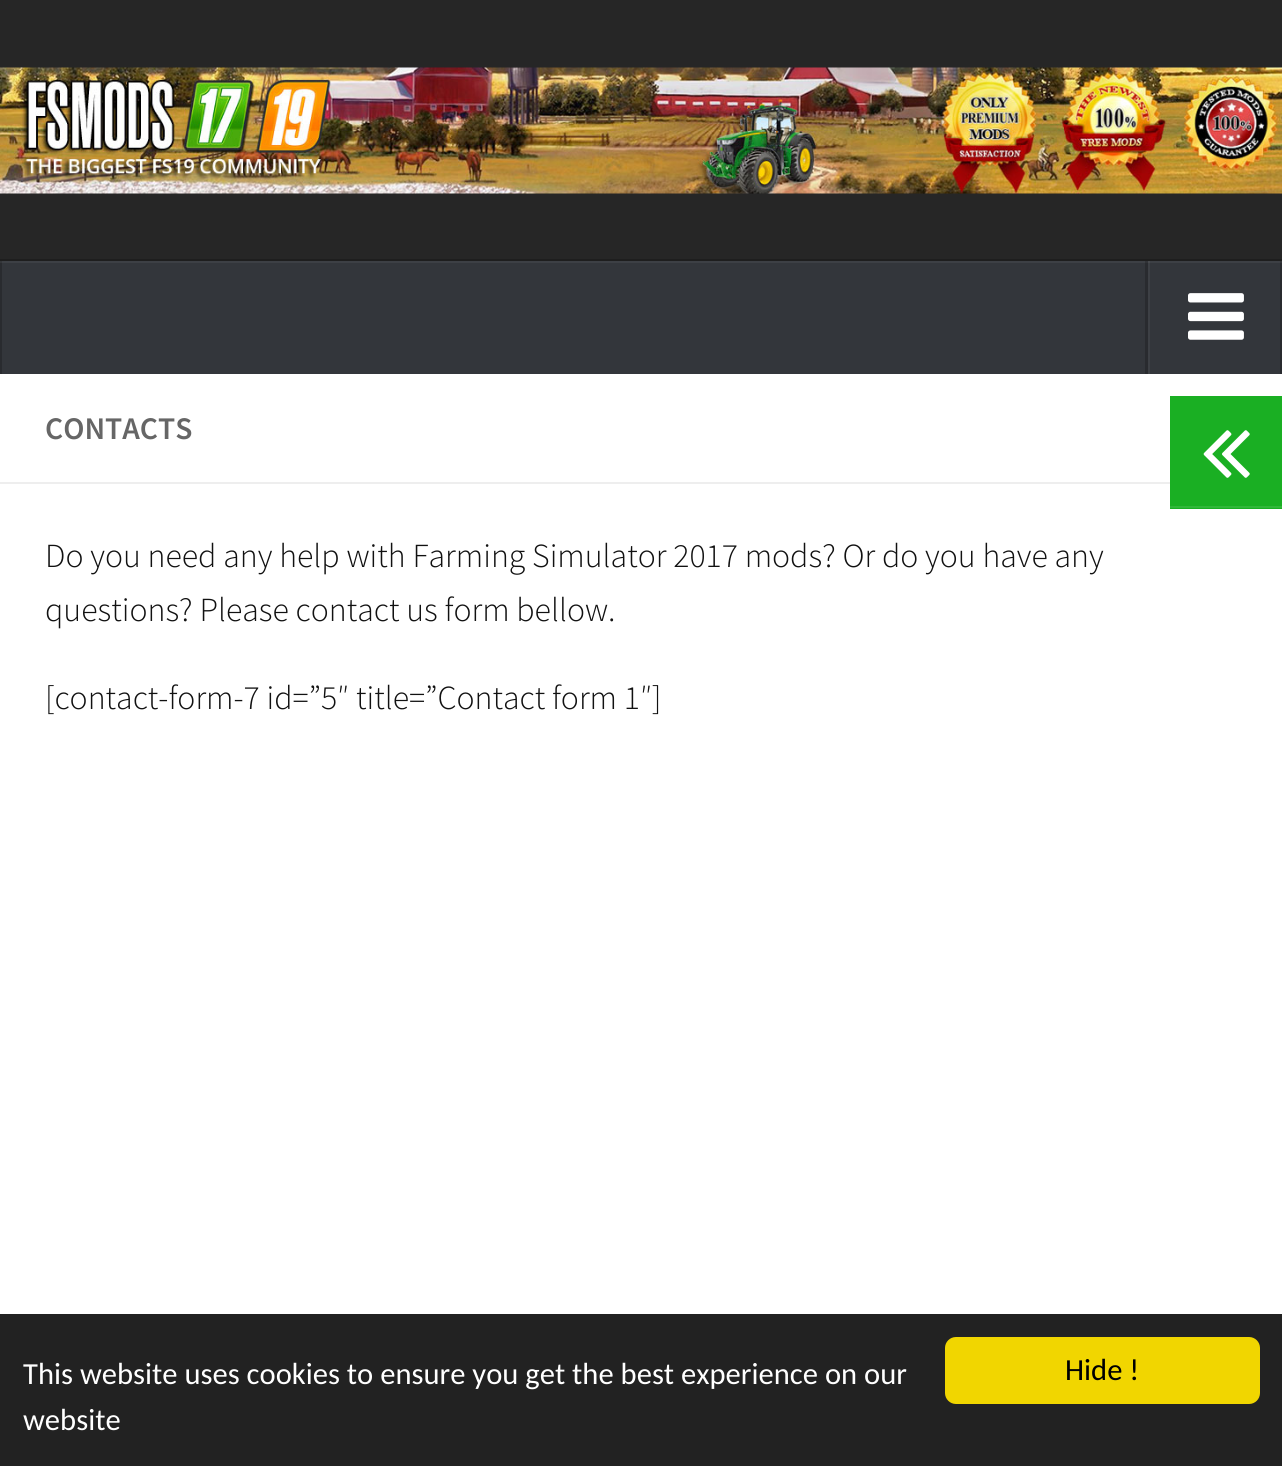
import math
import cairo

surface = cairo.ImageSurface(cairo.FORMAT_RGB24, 1282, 1466)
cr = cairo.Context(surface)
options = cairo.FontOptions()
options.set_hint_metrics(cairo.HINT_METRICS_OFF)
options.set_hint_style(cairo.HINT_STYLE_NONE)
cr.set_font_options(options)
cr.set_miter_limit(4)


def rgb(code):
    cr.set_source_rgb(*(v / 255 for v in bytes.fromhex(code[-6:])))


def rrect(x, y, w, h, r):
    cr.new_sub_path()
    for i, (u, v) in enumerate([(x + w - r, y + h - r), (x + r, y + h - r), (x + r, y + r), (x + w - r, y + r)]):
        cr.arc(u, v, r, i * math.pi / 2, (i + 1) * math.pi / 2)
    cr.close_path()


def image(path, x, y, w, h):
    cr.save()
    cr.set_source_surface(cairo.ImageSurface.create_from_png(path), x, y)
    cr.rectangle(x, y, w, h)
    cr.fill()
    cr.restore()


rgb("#ffffff")
cr.paint()
rgb("#262626")
cr.rectangle(0, 0, 1282, 259)
cr.fill()
image("img/1.png", 0, 67, 1282, 127)
rgb("#1e1e1e")
cr.new_path()
cr.move_to(0, 259)
cr.line_to(0, 261)
cr.line_to(1282, 261)
cr.line_to(1282, 371)
cr.line_to(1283, 371)
cr.line_to(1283, 259)
cr.close_path()
cr.fill()
for x, y, w, h, color in [
    (2, 263, 1278, 111, "#33363b"),
    (1148, 261, 2, 113, "#3d4045"),
    (0, 261, 1282, 2, "#3d4045"),
    (1148, 261, 2, 2, "#474a4e"),
    (1280, 261, 2, 113, "#292b2f"),
    (1280, 261, 2, 2, "#343639"),
    (0, 261, 2, 113, "#292b2f"),
    (0, 261, 2, 2, "#343639"),
]:
    rgb(color)
    cr.rectangle(x, y, w, h)
    cr.fill()
cr.set_source_rgba(0, 0, 0, 0.2)
cr.new_path()
cr.move_to(1145, 261)
cr.line_to(1145, 374)
cr.line_to(1280, 374)
cr.line_to(1148, 374)
cr.line_to(1148, 261)
cr.close_path()
cr.fill()
image("img/2.png", 1188, 293, 56, 47)
for x, y, w, h, color in [
    (0, 482, 1170, 2, "#eeeeee"),
    (1170, 396, 112, 113, "#1aaf23"),
    (1170, 506, 112, 2, "#31b739"),
]:
    rgb(color)
    cr.rectangle(x, y, w, h)
    cr.fill()
image("img/3.png", 1203, 430, 47, 48)
rgb("#222222")
cr.rectangle(0, 1314, 1282, 152)
cr.fill()
rgb("#f1d600")
rrect(945, 1337, 315, 67, 11)
cr.fill()
cr.select_font_face("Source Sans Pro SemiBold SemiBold")
cr.set_font_size(31.5)
rgb("#666666")
cr.move_to(45, 439)
cr.show_text("CONTACTS")
cr.select_font_face("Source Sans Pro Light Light")
cr.set_font_size(33.75)
rgb("#111111")
for x, y, s in [
    (45, 567, "Do you need any help with Farming Simulator 2017 mods? Or do you have any"),
    (45, 621, "questions? Please contact us form bellow."),
    (45, 709, "[contact-form-7 id=”5″ title=”Contact form 1″]"),
]:
    cr.move_to(x, y)
    cr.show_text(s)
cr.select_font_face("Carlito")
cr.set_font_size(30.6)
rgb("#ffffff")
cr.move_to(23, 1384)
cr.show_text("This website uses cookies to ensure you get the best experience on our")
cr.move_to(23, 1430)
cr.show_text("website")
rgb("#000000")
cr.move_to(1065, 1380)
cr.show_text("Hide !")
surface.write_to_png("page.png")
